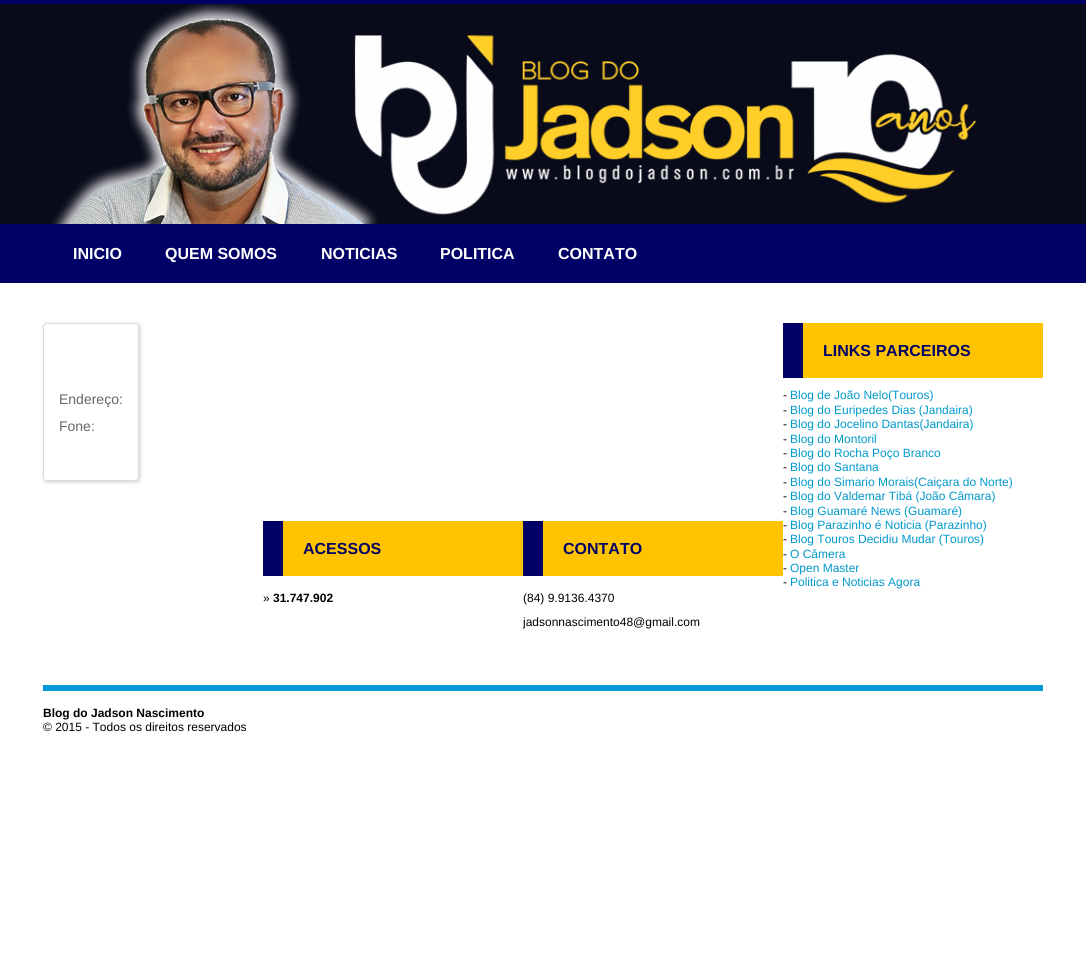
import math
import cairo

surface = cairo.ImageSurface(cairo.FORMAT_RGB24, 1086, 976)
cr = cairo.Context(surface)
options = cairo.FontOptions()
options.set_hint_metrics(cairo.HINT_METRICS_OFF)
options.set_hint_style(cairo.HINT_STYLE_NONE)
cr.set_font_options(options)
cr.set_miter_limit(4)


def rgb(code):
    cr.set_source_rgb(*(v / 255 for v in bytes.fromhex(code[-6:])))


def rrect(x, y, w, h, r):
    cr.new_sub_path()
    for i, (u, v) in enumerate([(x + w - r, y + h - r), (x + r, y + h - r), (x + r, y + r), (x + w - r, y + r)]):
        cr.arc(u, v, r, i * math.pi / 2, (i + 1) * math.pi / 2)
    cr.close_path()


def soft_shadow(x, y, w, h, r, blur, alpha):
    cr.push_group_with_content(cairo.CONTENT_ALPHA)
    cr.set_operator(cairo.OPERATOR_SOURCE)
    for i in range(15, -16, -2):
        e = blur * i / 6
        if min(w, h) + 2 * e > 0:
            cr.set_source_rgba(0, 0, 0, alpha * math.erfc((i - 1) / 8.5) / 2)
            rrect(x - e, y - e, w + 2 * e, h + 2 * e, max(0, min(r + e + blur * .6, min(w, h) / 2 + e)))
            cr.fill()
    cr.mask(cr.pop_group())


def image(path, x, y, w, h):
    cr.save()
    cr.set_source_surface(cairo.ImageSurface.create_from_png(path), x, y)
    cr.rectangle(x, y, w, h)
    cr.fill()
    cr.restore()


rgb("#ffffff")
cr.paint()
rgb("#0a0b1a")
cr.rectangle(0, 4, 1086, 220)
cr.fill()
rgb("#010066")
cr.rectangle(0, 0, 1086, 4)
cr.fill()
image("img/1.png", 51, 4, 327, 220)
image("img/2.png", 354, 35, 622, 180)
cr.rectangle(0, 224, 1086, 59)
cr.fill()
rgb("#cccccc")
soft_shadow(44, 324, 96, 158, 4, 2, 1)
rgb("#ffffff")
rrect(43.5, 323.5, 95, 157, 3.5)
cr.fill_preserve()
rgb("#dddddd")
cr.set_line_width(1)
cr.stroke()
for x, y, w, h, color in [
    (803, 323, 240, 55, "#ffc300"),
    (783, 323, 20, 55, "#010066"),
    (283, 521, 240, 55, "#ffc300"),
    (263, 521, 20, 55, "#010066"),
    (543, 521, 240, 55, "#ffc300"),
    (523, 521, 20, 55, "#010066"),
    (43, 685, 1000, 6, "#0098da"),
]:
    rgb(color)
    cr.rectangle(x, y, w, h)
    cr.fill()
cr.select_font_face("Liberation Sans", cairo.FONT_SLANT_NORMAL, cairo.FONT_WEIGHT_BOLD)
cr.set_font_size(16)
rgb("#ffffff")
for x, y, s in [
    (73, 259, "INICIO"),
    (165, 259, "QUEM SOMOS"),
    (321, 259, "NOTICIAS"),
    (440, 259, "POLITICA"),
    (558, 259, "CONTATO"),
]:
    cr.move_to(x, y)
    cr.show_text(s)
cr.select_font_face("Liberation Sans")
cr.set_font_size(14)
rgb("#666666")
cr.move_to(59, 404)
cr.show_text("Endereço:")
cr.move_to(59, 431)
cr.show_text("Fone:")
cr.select_font_face("Liberation Sans", cairo.FONT_SLANT_NORMAL, cairo.FONT_WEIGHT_BOLD)
cr.set_font_size(16)
rgb("#010066")
cr.move_to(823, 356)
cr.show_text("LINKS PARCEIROS")
cr.select_font_face("Liberation Sans")
cr.set_font_size(12)
rgb("#000000")
cr.move_to(783, 399)
cr.show_text("-")
rgb("#0099cc")
cr.move_to(790, 399)
cr.show_text("Blog de João Nelo(Touros)")
rgb("#000000")
cr.move_to(783, 414)
cr.show_text("-")
rgb("#0099cc")
cr.move_to(790, 414)
cr.show_text("Blog do Euripedes Dias (Jandaira)")
rgb("#000000")
cr.move_to(783, 428)
cr.show_text("-")
rgb("#0099cc")
cr.move_to(790, 428)
cr.show_text("Blog do Jocelino Dantas(Jandaira)")
rgb("#000000")
cr.move_to(783, 443)
cr.show_text("-")
rgb("#0099cc")
cr.move_to(790, 443)
cr.show_text("Blog do Montoril")
rgb("#000000")
cr.move_to(783, 457)
cr.show_text("-")
rgb("#0099cc")
cr.move_to(790, 457)
cr.show_text("Blog do Rocha Poço Branco")
rgb("#000000")
cr.move_to(783, 471)
cr.show_text("-")
rgb("#0099cc")
cr.move_to(790, 471)
cr.show_text("Blog do Santana")
rgb("#000000")
cr.move_to(783, 486)
cr.show_text("-")
rgb("#0099cc")
cr.move_to(790, 486)
cr.show_text("Blog do Simario Morais(Caiçara do Norte)")
rgb("#000000")
cr.move_to(783, 500)
cr.show_text("-")
rgb("#0099cc")
cr.move_to(790, 500)
cr.show_text("Blog do Valdemar Tibá (João Câmara)")
rgb("#000000")
cr.move_to(783, 515)
cr.show_text("-")
rgb("#0099cc")
cr.move_to(790, 515)
cr.show_text("Blog Guamaré News (Guamaré)")
rgb("#000000")
cr.move_to(783, 529)
cr.show_text("-")
rgb("#0099cc")
cr.move_to(790, 529)
cr.show_text("Blog Parazinho é Noticia (Parazinho)")
rgb("#000000")
cr.move_to(783, 543)
cr.show_text("-")
rgb("#0099cc")
cr.move_to(790, 543)
cr.show_text("Blog Touros Decidiu Mudar (Touros)")
rgb("#000000")
cr.move_to(783, 558)
cr.show_text("-")
rgb("#0099cc")
cr.move_to(790, 558)
cr.show_text("O Câmera")
rgb("#000000")
cr.move_to(783, 572)
cr.show_text("-")
rgb("#0099cc")
cr.move_to(790, 572)
cr.show_text("Open Master")
rgb("#000000")
cr.move_to(783, 586)
cr.show_text("-")
rgb("#0099cc")
cr.move_to(790, 586)
cr.show_text("Politica e Noticias Agora")
cr.select_font_face("Liberation Sans", cairo.FONT_SLANT_NORMAL, cairo.FONT_WEIGHT_BOLD)
cr.set_font_size(16)
rgb("#010066")
cr.move_to(303, 554)
cr.show_text("ACESSOS")
cr.select_font_face("Liberation Sans")
cr.set_font_size(12)
rgb("#000000")
cr.move_to(263, 602)
cr.show_text("»")
cr.select_font_face("Liberation Sans", cairo.FONT_SLANT_NORMAL, cairo.FONT_WEIGHT_BOLD)
cr.move_to(273, 602)
cr.show_text("31.747.902")
cr.set_font_size(16)
rgb("#010066")
cr.move_to(563, 554)
cr.show_text("CONTATO")
cr.select_font_face("Liberation Sans")
cr.set_font_size(12)
rgb("#000000")
cr.move_to(523, 602)
cr.show_text("(84) 9.9136.4370")
cr.move_to(523, 626)
cr.show_text("jadsonnascimento48@gmail.com")
cr.select_font_face("Liberation Sans", cairo.FONT_SLANT_NORMAL, cairo.FONT_WEIGHT_BOLD)
cr.move_to(43, 717)
cr.show_text("Blog do Jadson Nascimento")
cr.select_font_face("Liberation Sans")
cr.move_to(43, 731)
cr.show_text("© 2015 - Todos os direitos reservados")
surface.write_to_png("page.png")
